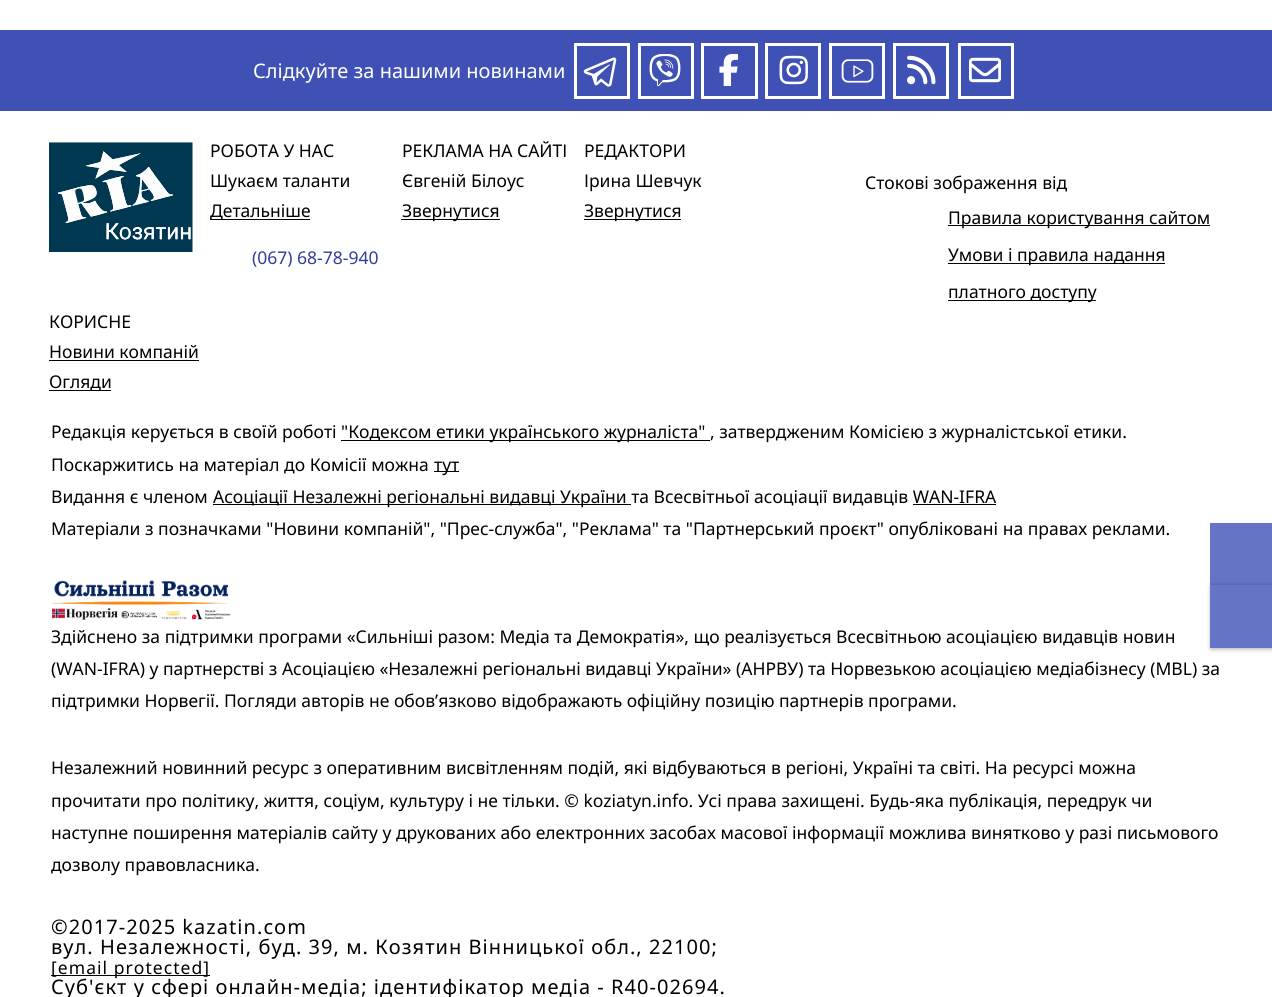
import math
import cairo

surface = cairo.ImageSurface(cairo.FORMAT_RGB24, 1272, 997)
cr = cairo.Context(surface)
options = cairo.FontOptions()
options.set_hint_metrics(cairo.HINT_METRICS_OFF)
options.set_hint_style(cairo.HINT_STYLE_NONE)
cr.set_font_options(options)
cr.set_miter_limit(4)


def rgb(code):
    cr.set_source_rgb(*(v / 255 for v in bytes.fromhex(code[-6:])))


def tracked(x, y, s, letter, word):
    cr.move_to(x, y)
    for ch in s:
        cr.show_text(ch)
        cr.rel_move_to(letter + word * (ch == ' '), 0)


def rrect(x, y, w, h, r):
    cr.new_sub_path()
    for i, (u, v) in enumerate([(x + w - r, y + h - r), (x + r, y + h - r), (x + r, y + r), (x + w - r, y + r)]):
        cr.arc(u, v, r, i * math.pi / 2, (i + 1) * math.pi / 2)
    cr.close_path()


def soft_shadow(x, y, w, h, r, blur, alpha):
    cr.push_group_with_content(cairo.CONTENT_ALPHA)
    cr.set_operator(cairo.OPERATOR_SOURCE)
    for i in range(15, -16, -2):
        e = blur * i / 6
        if min(w, h) + 2 * e > 0:
            cr.set_source_rgba(0, 0, 0, alpha * math.erfc((i - 1) / 8.5) / 2)
            rrect(x - e, y - e, w + 2 * e, h + 2 * e, max(0, min(r + e + blur * .6, min(w, h) / 2 + e)))
            cr.fill()
    cr.mask(cr.pop_group())


def image(path, x, y, w, h):
    cr.save()
    cr.set_source_surface(cairo.ImageSurface.create_from_png(path), x, y)
    cr.rectangle(x, y, w, h)
    cr.fill()
    cr.restore()


rgb("#ffffff")
cr.paint()
rgb("#3f51b5")
cr.rectangle(0, 30, 1272, 81)
cr.fill()
cr.rectangle(575.5, 44.5, 53, 53)
rgb("#ffffff")
cr.set_line_width(3)
cr.stroke()
image("img/1.png", 583, 57, 34, 30)
cr.rectangle(639.5, 44.5, 53, 53)
cr.stroke()
image("img/2.png", 649, 54, 32, 32)
cr.rectangle(702.5, 44.5, 54, 53)
cr.stroke()
image("img/3.png", 719, 54, 19, 32)
cr.rectangle(766.5, 44.5, 53, 53)
cr.stroke()
image("img/4.png", 779, 55, 29, 30)
cr.rectangle(830.5, 44.5, 53, 53)
cr.stroke()
image("img/5.png", 841, 59, 33, 24)
cr.rectangle(894.5, 44.5, 53, 53)
cr.stroke()
image("img/6.png", 907, 55, 29, 30)
cr.rectangle(959.5, 44.5, 53, 53)
cr.stroke()
image("img/7.png", 969, 57, 32, 26)
image("img/8.png", 49, 142, 144, 110)
for x, y, w, h, color in [
    (210, 219, 100, 1, "#000000"),
    (401, 219, 99, 1, "#000000"),
    (584, 219, 97, 1, "#000000"),
    (49, 360, 150, 1, "#000000"),
    (49, 390, 62, 1, "#000000"),
    (948, 225, 262, 1, "#000000"),
    (948, 263, 217, 1, "#000000"),
    (948, 300, 148, 1, "#000000"),
    (341, 440, 369, 1, "#000000"),
    (434, 471, 25, 1, "#000000"),
    (213, 504, 418, 1, "#000000"),
    (913, 504, 83, 1, "#000000"),
]:
    rgb(color)
    cr.rectangle(x, y, w, h)
    cr.fill()
image("img/9.png", 51, 580, 180, 40)
cr.rectangle(51, 975, 159, 1)
cr.fill()
rgb("#6574c4")
cr.rectangle(1210, 523, 62, 62)
cr.fill()
rgb("#000000")
soft_shadow(1211, 586, 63, 63, 0, 2.5, 0.32)
rgb("#6574c4")
cr.rectangle(1210, 585, 62, 63)
cr.fill()
cr.select_font_face("Noto Sans")
cr.set_font_size(20)
rgb("#ffffff")
cr.move_to(253, 78)
cr.show_text("Слідкуйте за нашими новинами")
cr.set_font_size(17.5)
rgb("#000000")
for x, y, s in [
    (210, 157, "РОБОТА У НАС"),
    (210, 187, "Шукаєм таланти"),
    (210, 217, "Детальніше"),
]:
    cr.move_to(x, y)
    cr.show_text(s)
rgb("#303e99")
cr.move_to(252, 264)
cr.show_text("(067) 68-78-940")
rgb("#000000")
for x, y, s in [
    (402, 157, "РЕКЛАМА НА САЙТІ"),
    (402, 187, "Євгеній Білоус"),
    (402, 217, "Звернутися"),
    (584, 157, "РЕДАКТОРИ"),
    (584, 187, "Ірина Шевчук"),
    (584, 217, "Звернутися"),
    (49, 328, "КОРИСНЕ"),
    (49, 358, "Новини компаній"),
    (49, 388, "Огляди"),
    (865, 189, "Стокові зображення від"),
    (948, 224, "Правила користування сайтом"),
    (948, 261, "Умови і правила надання"),
    (948, 298, "платного доступу"),
    (51, 438, "Редакція керується в своїй роботі"),
    (341, 438, "\"Кодексом етики українського журналіста\" , затвердженим Комісією з журналістської етики."),
    (51, 471, "Поскаржитись на матеріал до Комісії можна"),
    (434, 471, "тут"),
    (51, 503, "Видання є членом"),
    (213, 503, "Асоціації Незалежні регіональні видавці України та Всесвітньої асоціації видавців WAN-IFRA"),
    (51, 535, "Матеріали з позначками \"Новини компаній\", \"Прес-служба\", \"Реклама\" та \"Партнерський проєкт\" опубліковані на правах реклами."),
    (51, 643, "Здійснено за підтримки програми «Сильніші разом: Медіа та Демократія», що реалізується Всесвітньою асоціацією видавців новин"),
    (51, 675, "(WAN-IFRA) у партнерстві з Асоціацією «Незалежні регіональні видавці України» (АНРВУ) та Норвезькою асоціацією медіабізнесу (MBL) за"),
    (51, 707, "підтримки Норвегії. Погляди авторів не обов’язково відображають офіційну позицію партнерів програми."),
    (51, 774, "Незалежний новинний ресурс з оперативним висвітленням подій, які відбуваються в регіоні, Україні та світі. На ресурсі можна"),
    (51, 807, "прочитати про політику, життя, соціум, культуру і не тільки. © koziatyn.info. Усі права захищені. Будь-яка публiкацiя, передрук чи"),
    (51, 839, "наступне поширення матеріалів сайту у друкованих або електронних засобах масової інформації можлива винятково у разі письмового"),
    (51, 871, "дозволу правовласника."),
]:
    cr.move_to(x, y)
    cr.show_text(s)
cr.set_font_size(20)
tracked(51, 934, "©2017-2025 kazatin.com", 1.05, 0)
tracked(51, 954, "вул. Незалежності, буд. 39, м. Козятин Вінницької обл., 22100;", 1.05, 0)
cr.set_font_size(17.5)
tracked(51, 974, "[email protected]", 1.05, 0)
cr.set_font_size(20)
tracked(51, 994, "Cуб'єкт у сфері онлайн-медіа; ідентифікатор медіа - R40-02694.", 1.05, 0)
surface.write_to_png("page.png")
